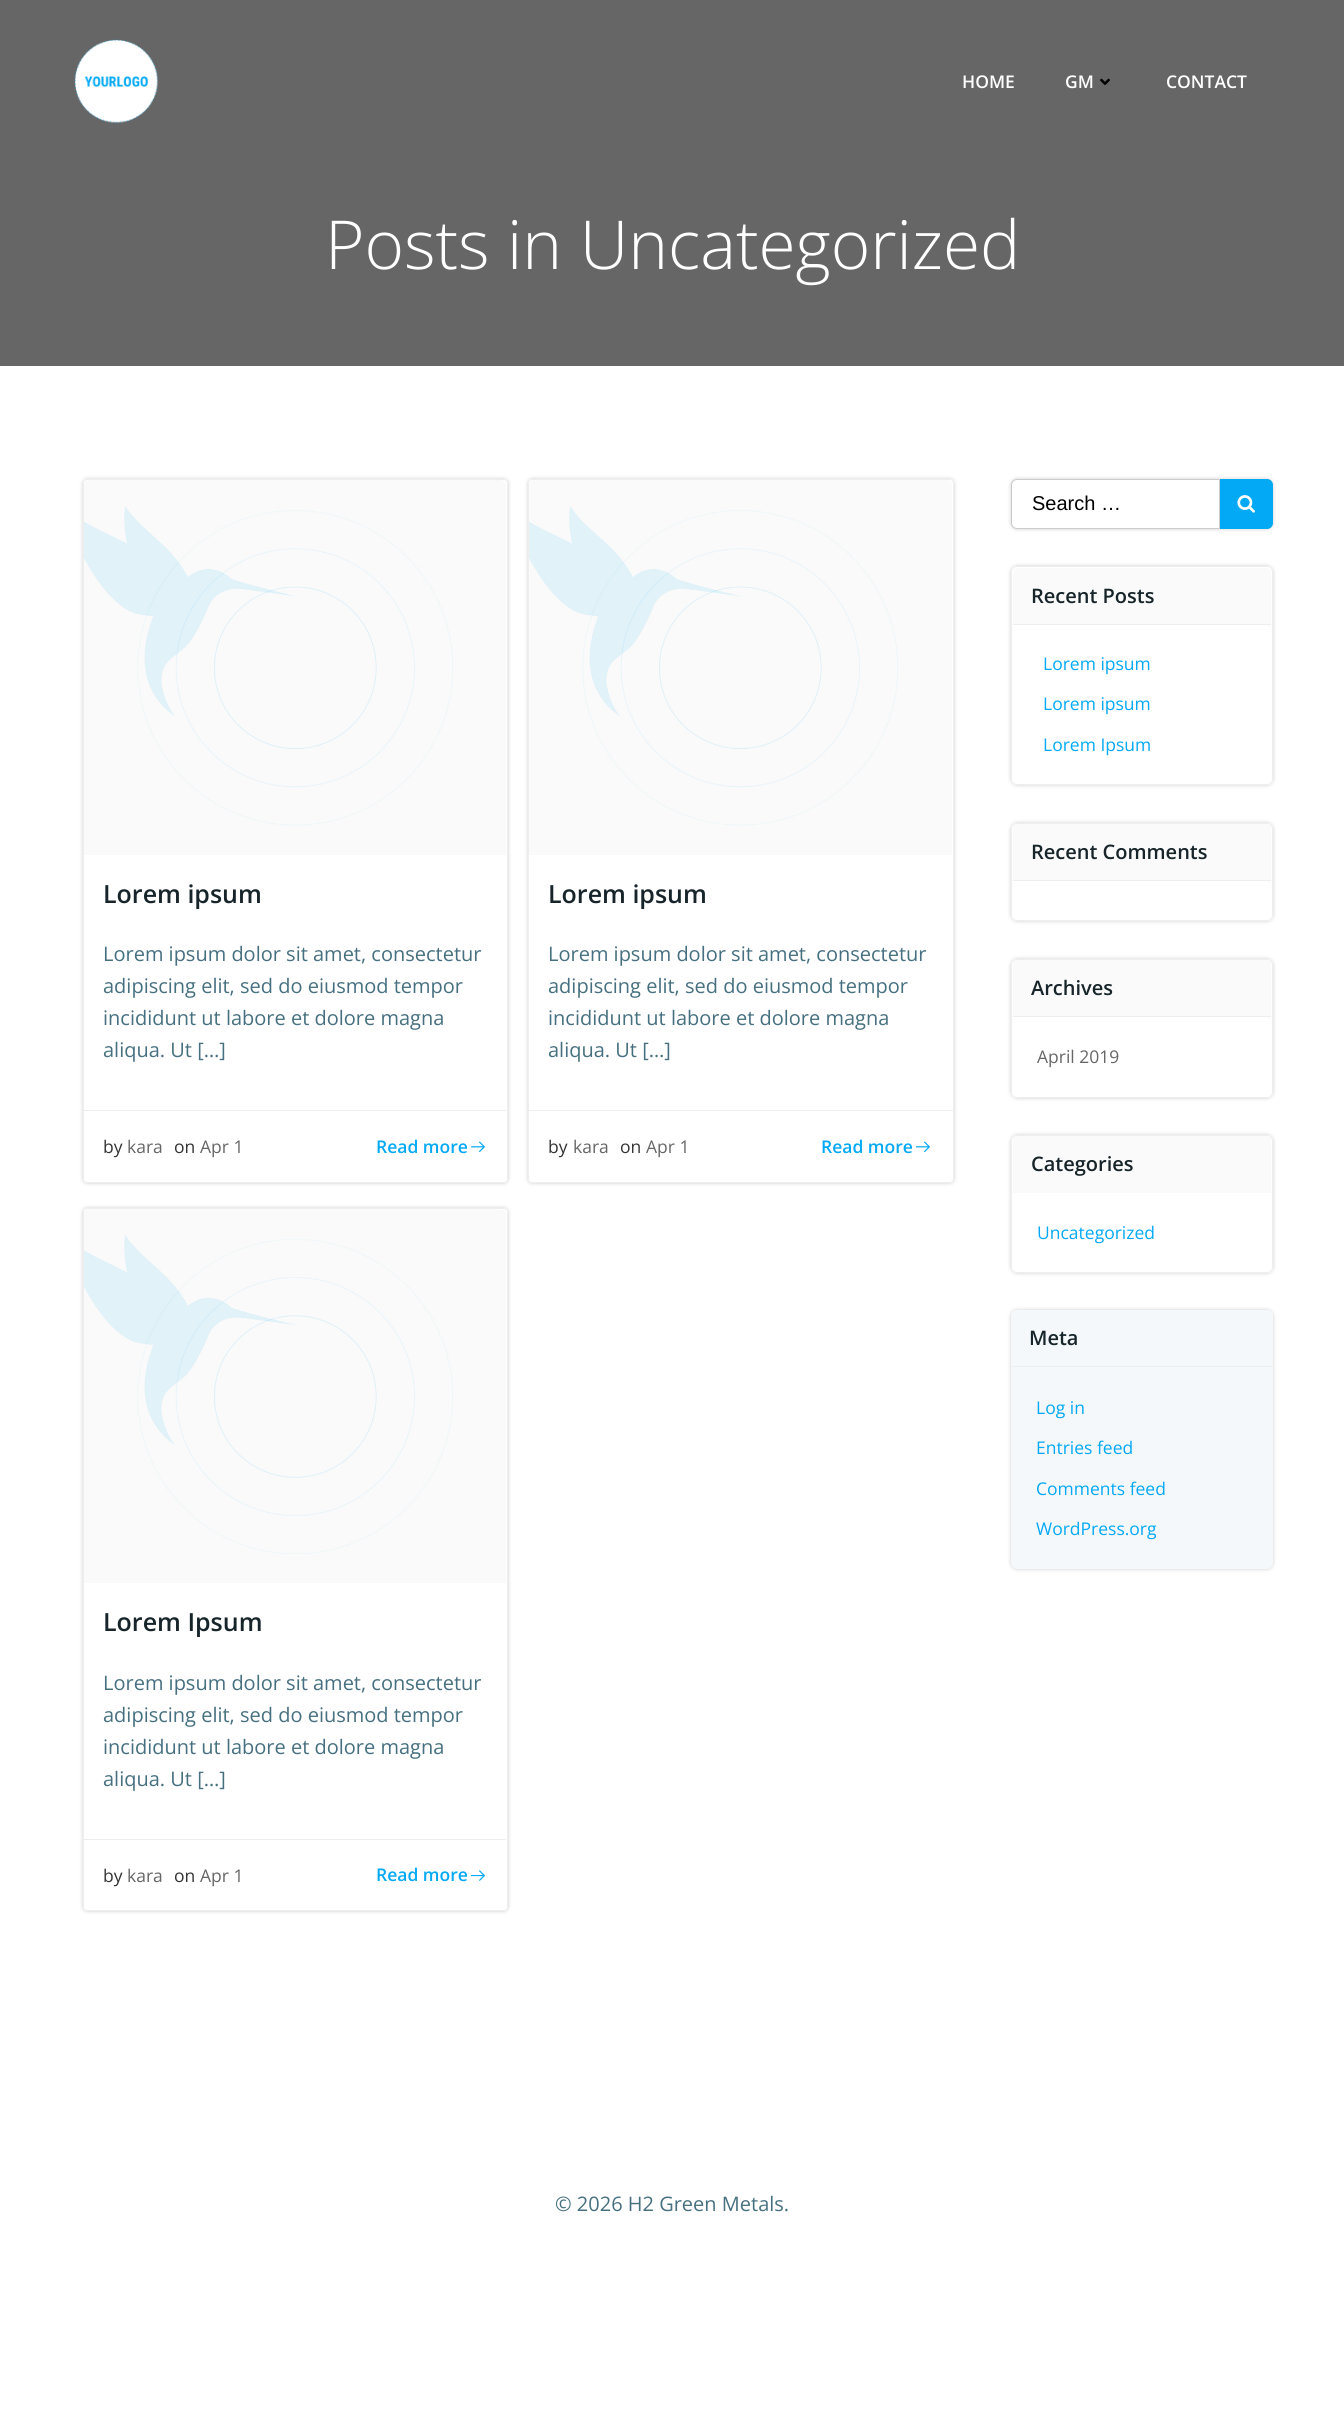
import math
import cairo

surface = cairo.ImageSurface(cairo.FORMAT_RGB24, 1344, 2427)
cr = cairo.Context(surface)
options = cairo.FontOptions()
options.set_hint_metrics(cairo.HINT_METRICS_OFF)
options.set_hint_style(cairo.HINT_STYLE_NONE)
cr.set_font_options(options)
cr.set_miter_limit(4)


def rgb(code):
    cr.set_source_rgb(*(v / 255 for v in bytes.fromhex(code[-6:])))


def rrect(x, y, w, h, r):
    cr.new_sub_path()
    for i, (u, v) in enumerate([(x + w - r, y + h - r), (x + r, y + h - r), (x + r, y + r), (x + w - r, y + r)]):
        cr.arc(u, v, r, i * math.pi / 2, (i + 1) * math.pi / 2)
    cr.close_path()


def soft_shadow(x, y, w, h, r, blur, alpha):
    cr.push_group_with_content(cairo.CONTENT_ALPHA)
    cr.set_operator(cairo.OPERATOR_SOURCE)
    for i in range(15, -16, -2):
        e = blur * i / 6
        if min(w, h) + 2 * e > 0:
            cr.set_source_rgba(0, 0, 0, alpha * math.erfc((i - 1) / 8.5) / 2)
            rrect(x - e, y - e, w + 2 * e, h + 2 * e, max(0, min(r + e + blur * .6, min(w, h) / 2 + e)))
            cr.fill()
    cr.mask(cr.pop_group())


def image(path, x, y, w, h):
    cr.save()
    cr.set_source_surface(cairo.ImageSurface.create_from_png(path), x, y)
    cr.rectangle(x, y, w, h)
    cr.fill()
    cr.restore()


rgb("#ffffff")
cr.paint()
rgb("#666666")
cr.rectangle(0, 0, 1344, 366)
cr.fill()
image("img/1.png", 74, 39, 85, 85)
image("img/2.png", 1100, 78, 10, 7)
cr.save()
cr.set_fill_rule(cairo.FILL_RULE_EVEN_ODD)
cr.new_path()
cr.move_to(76, 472)
cr.line_to(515, 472)
cr.line_to(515, 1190)
cr.line_to(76, 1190)
cr.close_path()
cr.move_to(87, 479)
cr.line_to(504, 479)
cr.curve_to(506, 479, 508, 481, 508, 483)
cr.line_to(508, 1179)
cr.curve_to(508, 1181, 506, 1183, 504, 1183)
cr.line_to(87, 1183)
cr.curve_to(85, 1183, 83, 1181, 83, 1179)
cr.line_to(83, 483)
cr.curve_to(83, 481, 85, 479, 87, 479)
cr.close_path()
cr.clip()
rgb("#000000")
soft_shadow(83, 479, 425, 704, 4, 2, 0.2)
cr.restore()
rrect(83.5, 479.5, 424, 703, 3.5)
rgb("#eeeeee")
cr.set_line_width(1)
cr.stroke()
image("img/3.png", 84, 480, 422, 375)
cr.rectangle(84, 1110, 422, 1)
cr.fill()
image("img/4.png", 471, 1141, 14, 12)
cr.save()
cr.set_fill_rule(cairo.FILL_RULE_EVEN_ODD)
cr.new_path()
cr.move_to(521, 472)
cr.line_to(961, 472)
cr.line_to(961, 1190)
cr.line_to(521, 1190)
cr.close_path()
cr.move_to(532, 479)
cr.line_to(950, 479)
cr.curve_to(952, 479, 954, 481, 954, 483)
cr.line_to(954, 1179)
cr.curve_to(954, 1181, 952, 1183, 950, 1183)
cr.line_to(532, 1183)
cr.curve_to(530, 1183, 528, 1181, 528, 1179)
cr.line_to(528, 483)
cr.curve_to(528, 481, 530, 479, 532, 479)
cr.close_path()
cr.clip()
rgb("#000000")
soft_shadow(528, 479, 426, 704, 4, 2, 0.2)
cr.restore()
rrect(528.5, 479.5, 425, 703, 3.5)
cr.stroke()
image("img/5.png", 529, 480, 423, 375)
cr.rectangle(529, 1110, 424, 1)
cr.fill()
image("img/4.png", 916, 1141, 14, 12)
cr.save()
cr.set_fill_rule(cairo.FILL_RULE_EVEN_ODD)
cr.new_path()
cr.move_to(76, 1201)
cr.line_to(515, 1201)
cr.line_to(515, 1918)
cr.line_to(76, 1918)
cr.close_path()
cr.move_to(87, 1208)
cr.line_to(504, 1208)
cr.curve_to(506, 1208, 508, 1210, 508, 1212)
cr.line_to(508, 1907)
cr.curve_to(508, 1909, 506, 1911, 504, 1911)
cr.line_to(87, 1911)
cr.curve_to(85, 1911, 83, 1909, 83, 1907)
cr.line_to(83, 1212)
cr.curve_to(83, 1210, 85, 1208, 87, 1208)
cr.close_path()
cr.clip()
rgb("#000000")
soft_shadow(83, 1208, 425, 703, 4, 2, 0.2)
cr.restore()
rrect(83.5, 1208.5, 424, 702, 3.5)
cr.stroke()
image("img/6.png", 84, 1209, 422, 374)
cr.rectangle(84, 1839, 422, 1)
cr.fill()
image("img/7.png", 471, 1870, 14, 11)
rgb("#000000")
soft_shadow(1011, 479, 262, 50, 6, 2, 0.2)
rgb("#ffffff")
cr.new_path()
cr.move_to(1017, 479.5)
cr.line_to(1219.5, 479.5)
cr.line_to(1219.5, 528.5)
cr.line_to(1017, 528.5)
cr.curve_to(1014, 528.5, 1011.5, 526, 1011.5, 523)
cr.line_to(1011.5, 485)
cr.curve_to(1011.5, 482, 1014, 479.5, 1017, 479.5)
cr.close_path()
cr.fill_preserve()
rgb("#cccccc")
cr.stroke()
rgb("#03a9f4")
cr.new_path()
cr.move_to(1220.5, 479.5)
cr.line_to(1267, 479.5)
cr.curve_to(1270, 479.5, 1272.5, 482, 1272.5, 485)
cr.line_to(1272.5, 523)
cr.curve_to(1272.5, 526, 1270, 528.5, 1267, 528.5)
cr.line_to(1220.5, 528.5)
cr.close_path()
cr.fill_preserve()
cr.stroke()
image("img/8.png", 1237, 495, 18, 18)
cr.save()
cr.set_fill_rule(cairo.FILL_RULE_EVEN_ODD)
cr.new_path()
cr.move_to(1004, 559)
cr.line_to(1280, 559)
cr.line_to(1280, 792)
cr.line_to(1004, 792)
cr.close_path()
cr.move_to(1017, 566)
cr.line_to(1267, 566)
cr.curve_to(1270.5, 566, 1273, 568.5, 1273, 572)
cr.line_to(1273, 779)
cr.curve_to(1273, 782.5, 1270.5, 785, 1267, 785)
cr.line_to(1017, 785)
cr.curve_to(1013.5, 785, 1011, 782.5, 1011, 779)
cr.line_to(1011, 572)
cr.curve_to(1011, 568.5, 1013.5, 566, 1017, 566)
cr.close_path()
cr.clip()
rgb("#000000")
soft_shadow(1011, 566, 262, 219, 6, 2, 0.2)
cr.restore()
rrect(1011.5, 566.5, 261, 218, 5.5)
rgb("#eeeeee")
cr.stroke()
rgb("#fafafa")
cr.new_path()
cr.move_to(1018, 568)
cr.line_to(1266, 568)
cr.curve_to(1269, 568, 1271, 570, 1271, 573)
cr.line_to(1271, 624)
cr.line_to(1013, 624)
cr.line_to(1013, 573)
cr.curve_to(1013, 570, 1015, 568, 1018, 568)
cr.close_path()
cr.fill()
rgb("#eeeeee")
cr.rectangle(1013, 624, 258, 1)
cr.fill()
cr.save()
cr.set_fill_rule(cairo.FILL_RULE_EVEN_ODD)
cr.new_path()
cr.move_to(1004, 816)
cr.line_to(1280, 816)
cr.line_to(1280, 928)
cr.line_to(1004, 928)
cr.close_path()
cr.move_to(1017, 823)
cr.line_to(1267, 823)
cr.curve_to(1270.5, 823, 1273, 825.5, 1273, 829)
cr.line_to(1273, 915)
cr.curve_to(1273, 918.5, 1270.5, 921, 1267, 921)
cr.line_to(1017, 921)
cr.curve_to(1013.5, 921, 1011, 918.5, 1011, 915)
cr.line_to(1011, 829)
cr.curve_to(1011, 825.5, 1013.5, 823, 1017, 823)
cr.close_path()
cr.clip()
rgb("#000000")
soft_shadow(1011, 823, 262, 98, 6, 2, 0.2)
cr.restore()
rrect(1011.5, 823.5, 261, 97, 5.5)
cr.stroke()
rgb("#fafafa")
cr.new_path()
cr.move_to(1018, 824)
cr.line_to(1266, 824)
cr.curve_to(1269, 824, 1271, 826, 1271, 829)
cr.line_to(1271, 880)
cr.line_to(1013, 880)
cr.line_to(1013, 829)
cr.curve_to(1013, 826, 1015, 824, 1018, 824)
cr.close_path()
cr.fill()
rgb("#eeeeee")
cr.rectangle(1013, 880, 258, 1)
cr.fill()
cr.save()
cr.set_fill_rule(cairo.FILL_RULE_EVEN_ODD)
cr.new_path()
cr.move_to(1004, 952)
cr.line_to(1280, 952)
cr.line_to(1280, 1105)
cr.line_to(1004, 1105)
cr.close_path()
cr.move_to(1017, 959)
cr.line_to(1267, 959)
cr.curve_to(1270.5, 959, 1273, 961.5, 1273, 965)
cr.line_to(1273, 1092)
cr.curve_to(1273, 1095.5, 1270.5, 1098, 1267, 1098)
cr.line_to(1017, 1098)
cr.curve_to(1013.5, 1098, 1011, 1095.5, 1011, 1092)
cr.line_to(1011, 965)
cr.curve_to(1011, 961.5, 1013.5, 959, 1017, 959)
cr.close_path()
cr.clip()
rgb("#000000")
soft_shadow(1011, 959, 262, 139, 6, 2, 0.2)
cr.restore()
rrect(1011.5, 959.5, 261, 138, 5.5)
cr.stroke()
rgb("#fafafa")
cr.new_path()
cr.move_to(1018, 960)
cr.line_to(1266, 960)
cr.curve_to(1269, 960, 1271, 962, 1271, 965)
cr.line_to(1271, 1016)
cr.line_to(1013, 1016)
cr.line_to(1013, 965)
cr.curve_to(1013, 962, 1015, 960, 1018, 960)
cr.close_path()
cr.fill()
rgb("#eeeeee")
cr.rectangle(1013, 1016, 258, 1)
cr.fill()
cr.save()
cr.set_fill_rule(cairo.FILL_RULE_EVEN_ODD)
cr.new_path()
cr.move_to(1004, 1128)
cr.line_to(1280, 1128)
cr.line_to(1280, 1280)
cr.line_to(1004, 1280)
cr.close_path()
cr.move_to(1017, 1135)
cr.line_to(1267, 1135)
cr.curve_to(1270.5, 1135, 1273, 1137.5, 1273, 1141)
cr.line_to(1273, 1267)
cr.curve_to(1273, 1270.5, 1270.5, 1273, 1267, 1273)
cr.line_to(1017, 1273)
cr.curve_to(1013.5, 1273, 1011, 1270.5, 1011, 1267)
cr.line_to(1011, 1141)
cr.curve_to(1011, 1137.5, 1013.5, 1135, 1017, 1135)
cr.close_path()
cr.clip()
rgb("#000000")
soft_shadow(1011, 1135, 262, 138, 6, 2, 0.2)
cr.restore()
rrect(1011.5, 1135.5, 261, 137, 5.5)
cr.stroke()
rgb("#fafafa")
cr.new_path()
cr.move_to(1018, 1136)
cr.line_to(1266, 1136)
cr.curve_to(1269, 1136, 1271, 1138, 1271, 1141)
cr.line_to(1271, 1193)
cr.line_to(1013, 1193)
cr.line_to(1013, 1141)
cr.curve_to(1013, 1138, 1015, 1136, 1018, 1136)
cr.close_path()
cr.fill()
rgb("#000000")
soft_shadow(1011, 1310, 262, 259, 6, 2, 0.2)
rgb("#f5f8fb")
rrect(1011, 1310, 262, 259, 6)
cr.fill()
cr.new_path()
cr.move_to(1017, 1310)
cr.line_to(1267, 1310)
cr.curve_to(1270.5, 1310, 1273, 1312.5, 1273, 1316)
cr.line_to(1273, 1366)
cr.line_to(1011, 1366)
cr.line_to(1011, 1316)
cr.curve_to(1011, 1312.5, 1013.5, 1310, 1017, 1310)
cr.close_path()
cr.fill()
rgb("#eeeeee")
cr.rectangle(1011, 1366, 262, 1)
cr.fill()
cr.select_font_face("Open Sans SemiBold")
cr.set_font_size(17.5)
rgb("#ffffff")
for x, y, s in [
    (962, 88, "HOME"),
    (1065, 88, "GM"),
    (1166, 88, "CONTACT"),
]:
    cr.move_to(x, y)
    cr.show_text(s)
cr.select_font_face("Open Sans Light")
cr.set_font_size(67.5)
cr.move_to(325, 269)
cr.show_text("Posts in Uncategorized")
cr.select_font_face("Open Sans SemiBold")
cr.set_font_size(25)
rgb("#17252a")
cr.move_to(103, 903)
cr.show_text("Lorem ipsum")
cr.select_font_face("Open Sans")
cr.set_font_size(20)
rgb("#46707f")
for x, y, s in [
    (103, 961, "Lorem ipsum dolor sit amet, consectetur"),
    (103, 993, "adipiscing elit, sed do eiusmod tempor"),
    (103, 1025, "incididunt ut labore et dolore magna"),
    (103, 1057, "aliqua. Ut […]"),
]:
    cr.move_to(x, y)
    cr.show_text(s)
cr.set_font_size(17.5)
rgb("#333333")
cr.move_to(103, 1153)
cr.show_text("by")
rgb("#666666")
cr.move_to(127, 1153)
cr.show_text("kara")
rgb("#333333")
cr.move_to(174, 1153)
cr.show_text("on")
rgb("#666666")
cr.move_to(200, 1153)
cr.show_text("Apr 1")
cr.select_font_face("Open Sans SemiBold")
rgb("#03a9f4")
cr.move_to(376, 1153)
cr.show_text("Read more")
cr.set_font_size(25)
rgb("#17252a")
cr.move_to(548, 903)
cr.show_text("Lorem ipsum")
cr.select_font_face("Open Sans")
cr.set_font_size(20)
rgb("#46707f")
for x, y, s in [
    (548, 961, "Lorem ipsum dolor sit amet, consectetur"),
    (548, 993, "adipiscing elit, sed do eiusmod tempor"),
    (548, 1025, "incididunt ut labore et dolore magna"),
    (548, 1057, "aliqua. Ut […]"),
]:
    cr.move_to(x, y)
    cr.show_text(s)
cr.set_font_size(17.5)
rgb("#333333")
cr.move_to(548, 1153)
cr.show_text("by")
rgb("#666666")
cr.move_to(573, 1153)
cr.show_text("kara")
rgb("#333333")
cr.move_to(620, 1153)
cr.show_text("on")
rgb("#666666")
cr.move_to(646, 1153)
cr.show_text("Apr 1")
cr.select_font_face("Open Sans SemiBold")
rgb("#03a9f4")
cr.move_to(821, 1153)
cr.show_text("Read more")
cr.set_font_size(25)
rgb("#17252a")
cr.move_to(103, 1631)
cr.show_text("Lorem Ipsum")
cr.select_font_face("Open Sans")
cr.set_font_size(20)
rgb("#46707f")
for x, y, s in [
    (103, 1690, "Lorem ipsum dolor sit amet, consectetur"),
    (103, 1722, "adipiscing elit, sed do eiusmod tempor"),
    (103, 1754, "incididunt ut labore et dolore magna"),
    (103, 1786, "aliqua. Ut […]"),
]:
    cr.move_to(x, y)
    cr.show_text(s)
cr.set_font_size(17.5)
rgb("#333333")
cr.move_to(103, 1882)
cr.show_text("by")
rgb("#666666")
cr.move_to(127, 1882)
cr.show_text("kara")
rgb("#333333")
cr.move_to(174, 1882)
cr.show_text("on")
rgb("#666666")
cr.move_to(200, 1882)
cr.show_text("Apr 1")
cr.select_font_face("Open Sans SemiBold")
rgb("#03a9f4")
cr.move_to(376, 1881)
cr.show_text("Read more")
cr.select_font_face("Liberation Sans")
cr.set_font_size(20)
rgb("#000000")
cr.move_to(1032, 510)
cr.show_text("Search …")
cr.select_font_face("Open Sans SemiBold")
rgb("#17252a")
cr.move_to(1031, 603)
cr.show_text("Recent Posts")
cr.select_font_face("Open Sans")
cr.set_font_size(17.5)
rgb("#03a9f4")
for x, y, s in [
    (1043, 670, "Lorem ipsum"),
    (1043, 710, "Lorem ipsum"),
    (1043, 751, "Lorem Ipsum"),
]:
    cr.move_to(x, y)
    cr.show_text(s)
cr.select_font_face("Open Sans SemiBold")
cr.set_font_size(20)
rgb("#17252a")
cr.move_to(1031, 859)
cr.show_text("Recent Comments")
cr.move_to(1031, 995)
cr.show_text("Archives")
cr.select_font_face("Open Sans")
cr.set_font_size(17.5)
rgb("#666666")
cr.move_to(1037, 1063)
cr.show_text("April 2019")
cr.select_font_face("Open Sans SemiBold")
cr.set_font_size(20)
rgb("#17252a")
cr.move_to(1031, 1171)
cr.show_text("Categories")
cr.select_font_face("Open Sans")
cr.set_font_size(17.5)
rgb("#03a9f4")
cr.move_to(1037, 1239)
cr.show_text("Uncategorized")
cr.select_font_face("Open Sans SemiBold")
cr.set_font_size(20)
rgb("#17252a")
cr.move_to(1029, 1345)
cr.show_text("Meta")
cr.select_font_face("Open Sans")
cr.set_font_size(17.5)
rgb("#03a9f4")
for x, y, s in [
    (1036, 1414, "Log in"),
    (1036, 1454, "Entries feed"),
    (1036, 1495, "Comments feed"),
    (1036, 1535, "WordPress.org"),
]:
    cr.move_to(x, y)
    cr.show_text(s)
cr.set_font_size(20)
rgb("#46707f")
cr.move_to(555, 2211)
cr.show_text("© 2026 H2 Green Metals.")
surface.write_to_png("page.png")
